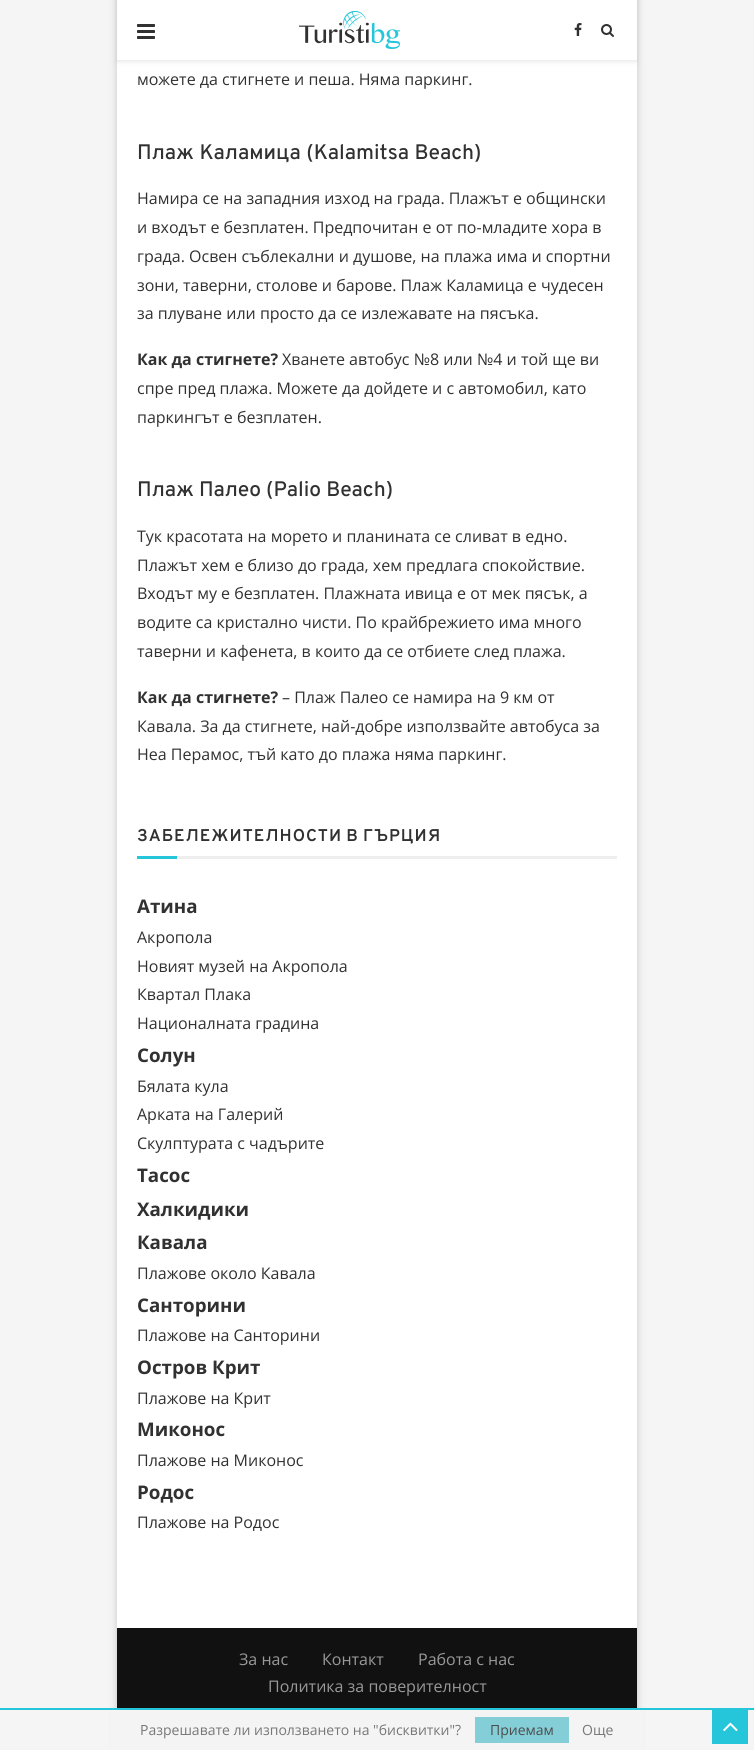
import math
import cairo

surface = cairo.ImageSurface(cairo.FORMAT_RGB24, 754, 1750)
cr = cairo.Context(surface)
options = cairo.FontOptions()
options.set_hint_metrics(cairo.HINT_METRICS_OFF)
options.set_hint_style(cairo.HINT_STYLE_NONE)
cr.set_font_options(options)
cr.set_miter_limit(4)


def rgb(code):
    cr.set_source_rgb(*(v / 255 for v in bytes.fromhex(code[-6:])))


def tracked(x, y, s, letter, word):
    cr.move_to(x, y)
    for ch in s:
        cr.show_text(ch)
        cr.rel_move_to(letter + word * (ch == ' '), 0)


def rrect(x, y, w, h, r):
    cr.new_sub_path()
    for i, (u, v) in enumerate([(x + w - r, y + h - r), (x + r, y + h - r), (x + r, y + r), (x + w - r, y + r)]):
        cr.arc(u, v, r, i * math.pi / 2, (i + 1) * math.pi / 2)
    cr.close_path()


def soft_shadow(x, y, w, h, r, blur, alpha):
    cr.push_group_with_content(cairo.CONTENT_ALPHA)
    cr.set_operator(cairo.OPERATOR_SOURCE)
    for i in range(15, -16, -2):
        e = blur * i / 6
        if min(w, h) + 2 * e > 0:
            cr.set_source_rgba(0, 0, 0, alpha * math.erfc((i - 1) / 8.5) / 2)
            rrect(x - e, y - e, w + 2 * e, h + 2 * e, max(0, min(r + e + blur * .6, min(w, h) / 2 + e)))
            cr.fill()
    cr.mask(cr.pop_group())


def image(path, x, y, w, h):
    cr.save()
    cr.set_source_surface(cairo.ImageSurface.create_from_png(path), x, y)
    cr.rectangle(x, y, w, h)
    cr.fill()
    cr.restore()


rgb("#f5f5f5")
cr.paint()
rgb("#000000")
soft_shadow(117, -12, 520, 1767, 0, 4, 0.2)
rgb("#ffffff")
cr.rectangle(117, 60, 520, 1568)
cr.fill()
rgb("#bebebe")
soft_shadow(117, 1, 520, 60, 0, 2.5, 0.46)
rgb("#ffffff")
cr.rectangle(117, 0, 520, 60)
cr.fill()
image("img/1.png", 137, 24, 18, 15)
image("img/2.png", 299, 11, 101, 38)
image("img/3.png", 574, 23, 8, 13)
image("img/4.png", 601, 24, 13, 13)
for x, y, w, h, color in [
    (177, 856, 440, 3, "#eeeeee"),
    (137, 856, 40, 3, "#26c6da"),
    (117, 1628, 520, 80, "#111111"),
    (712, 1710, 36, 34, "#26c6da"),
]:
    rgb(color)
    cr.rectangle(x, y, w, h)
    cr.fill()
image("img/5.png", 723, 1722, 15, 9)
for x, y, w, h, color in [
    (111, 1710, 532, 40, "#f4f4f4"),
    (0, 1708, 754, 2, "#26c6da"),
    (475, 1717, 94, 26, "#84ced8"),
]:
    rgb(color)
    cr.rectangle(x, y, w, h)
    cr.fill()
cr.select_font_face("Open Sans")
cr.set_font_size(16)
rgb("#313131")
cr.move_to(137, 85)
cr.show_text("можете да стигнете и пеша. Няма паркинг.")
cr.select_font_face("Overpass Medium")
cr.set_font_size(21)
tracked(137, 159, "Плаж Каламица (Kalamitsa Beach)", 0, 0.5)
cr.select_font_face("Open Sans")
cr.set_font_size(16)
for x, y, s in [
    (137, 204, "Намира се на западния изход на града. Плажът е общински"),
    (137, 233, "и входът е безплатен. Предпочитан е от по-младите хора в"),
    (137, 262, "града. Освен съблекални и душове, на плажа има и спортни"),
    (137, 291, "зони, таверни, столове и барове. Плаж Каламица е чудесен"),
    (137, 319, "за плуване или просто да се излежавате на пясъка."),
]:
    cr.move_to(x, y)
    cr.show_text(s)
cr.select_font_face("Open Sans", cairo.FONT_SLANT_NORMAL, cairo.FONT_WEIGHT_BOLD)
cr.move_to(137, 365)
cr.show_text("Как да стигнете?")
cr.select_font_face("Open Sans")
for x, y, s in [
    (282, 365, "Хванете автобус №8 или №4 и той ще ви"),
    (137, 394, "спре пред плажа. Можете да дойдете и с автомобил, като"),
    (137, 423, "паркингът е безплатен."),
]:
    cr.move_to(x, y)
    cr.show_text(s)
cr.select_font_face("Overpass Medium")
cr.set_font_size(21)
cr.move_to(137, 496)
cr.show_text("Плаж Палео (Palio Beach)")
cr.select_font_face("Open Sans")
cr.set_font_size(16)
for x, y, s in [
    (137, 542, "Тук красотата на морето и планината се сливат в едно."),
    (137, 571, "Плажът хем е близо до града, хем предлага спокойствие."),
    (137, 599, "Входът му е безплатен. Плажната ивица е от мек пясък, а"),
    (137, 628, "водите са кристално чисти. По крайбрежието има много"),
    (137, 657, "таверни и кафенета, в които да се отбиете след плажа."),
]:
    cr.move_to(x, y)
    cr.show_text(s)
cr.select_font_face("Open Sans", cairo.FONT_SLANT_NORMAL, cairo.FONT_WEIGHT_BOLD)
cr.move_to(137, 703)
cr.show_text("Как да стигнете?")
cr.select_font_face("Open Sans")
for x, y, s in [
    (282, 703, "– Плаж Палео се намира на 9 км от"),
    (137, 732, "Кавала. За да стигнете, най-добре използвайте автобуса за"),
    (137, 760, "Неа Перамос, тъй като до плажа няма паркинг."),
]:
    cr.move_to(x, y)
    cr.show_text(s)
cr.select_font_face("Overpass SemiBold")
cr.set_font_size(17)
tracked(137, 841, "ЗАБЕЛЕЖИТЕЛНОСТИ В ГЪРЦИЯ", 1, -1)
cr.select_font_face("Open Sans", cairo.FONT_SLANT_NORMAL, cairo.FONT_WEIGHT_BOLD)
cr.set_font_size(18.75)
cr.move_to(137, 913)
cr.show_text("Атина")
cr.select_font_face("Open Sans")
cr.set_font_size(16)
for x, y, s in [
    (137, 943, "Акропола"),
    (137, 972, "Новият музей на Акропола"),
    (137, 1000, "Квартал Плака"),
    (137, 1029, "Националната градина"),
]:
    cr.move_to(x, y)
    cr.show_text(s)
cr.select_font_face("Open Sans", cairo.FONT_SLANT_NORMAL, cairo.FONT_WEIGHT_BOLD)
cr.set_font_size(18.75)
cr.move_to(137, 1062)
cr.show_text("Солун")
cr.select_font_face("Open Sans")
cr.set_font_size(16)
for x, y, s in [
    (137, 1092, "Бялата кула"),
    (137, 1120, "Арката на Галерий"),
    (137, 1149, "Скулптурата с чадърите"),
]:
    cr.move_to(x, y)
    cr.show_text(s)
cr.select_font_face("Open Sans", cairo.FONT_SLANT_NORMAL, cairo.FONT_WEIGHT_BOLD)
cr.set_font_size(18.75)
for x, y, s in [
    (137, 1182, "Тасос"),
    (137, 1216, "Халкидики"),
    (137, 1249, "Кавала"),
]:
    cr.move_to(x, y)
    cr.show_text(s)
cr.select_font_face("Open Sans")
cr.set_font_size(16)
cr.move_to(137, 1279)
cr.show_text("Плажове около Кавала")
cr.select_font_face("Open Sans", cairo.FONT_SLANT_NORMAL, cairo.FONT_WEIGHT_BOLD)
cr.set_font_size(18.75)
cr.move_to(137, 1312)
cr.show_text("Санторини")
cr.select_font_face("Open Sans")
cr.set_font_size(16)
cr.move_to(137, 1341)
cr.show_text("Плажове на Санторини")
cr.select_font_face("Open Sans", cairo.FONT_SLANT_NORMAL, cairo.FONT_WEIGHT_BOLD)
cr.set_font_size(18.75)
cr.move_to(137, 1374)
cr.show_text("Остров Крит")
cr.select_font_face("Open Sans")
cr.set_font_size(16)
cr.move_to(137, 1404)
cr.show_text("Плажове на Крит")
cr.select_font_face("Open Sans", cairo.FONT_SLANT_NORMAL, cairo.FONT_WEIGHT_BOLD)
cr.set_font_size(18.75)
cr.move_to(137, 1436)
cr.show_text("Миконос")
cr.select_font_face("Open Sans")
cr.set_font_size(16)
cr.move_to(137, 1466)
cr.show_text("Плажове на Миконос")
cr.select_font_face("Open Sans", cairo.FONT_SLANT_NORMAL, cairo.FONT_WEIGHT_BOLD)
cr.set_font_size(18.75)
cr.move_to(137, 1499)
cr.show_text("Родос")
cr.select_font_face("Open Sans")
cr.set_font_size(16)
cr.move_to(137, 1528)
cr.show_text("Плажове на Родос")
rgb("#999999")
for x, y, s in [
    (239, 1665, "За нас"),
    (322, 1665, "Контакт"),
    (418, 1665, "Работа с нас"),
    (268, 1692, "Политика за поверителност"),
]:
    cr.move_to(x, y)
    cr.show_text(s)
cr.set_font_size(14)
rgb("#777777")
cr.move_to(140, 1735)
cr.show_text("Разрешавате ли използването на \"бисквитки\"?")
rgb("#4c4c4c")
cr.move_to(490, 1735)
cr.show_text("Приемам")
rgb("#777777")
cr.move_to(582, 1735)
cr.show_text("Още")
surface.write_to_png("page.png")
